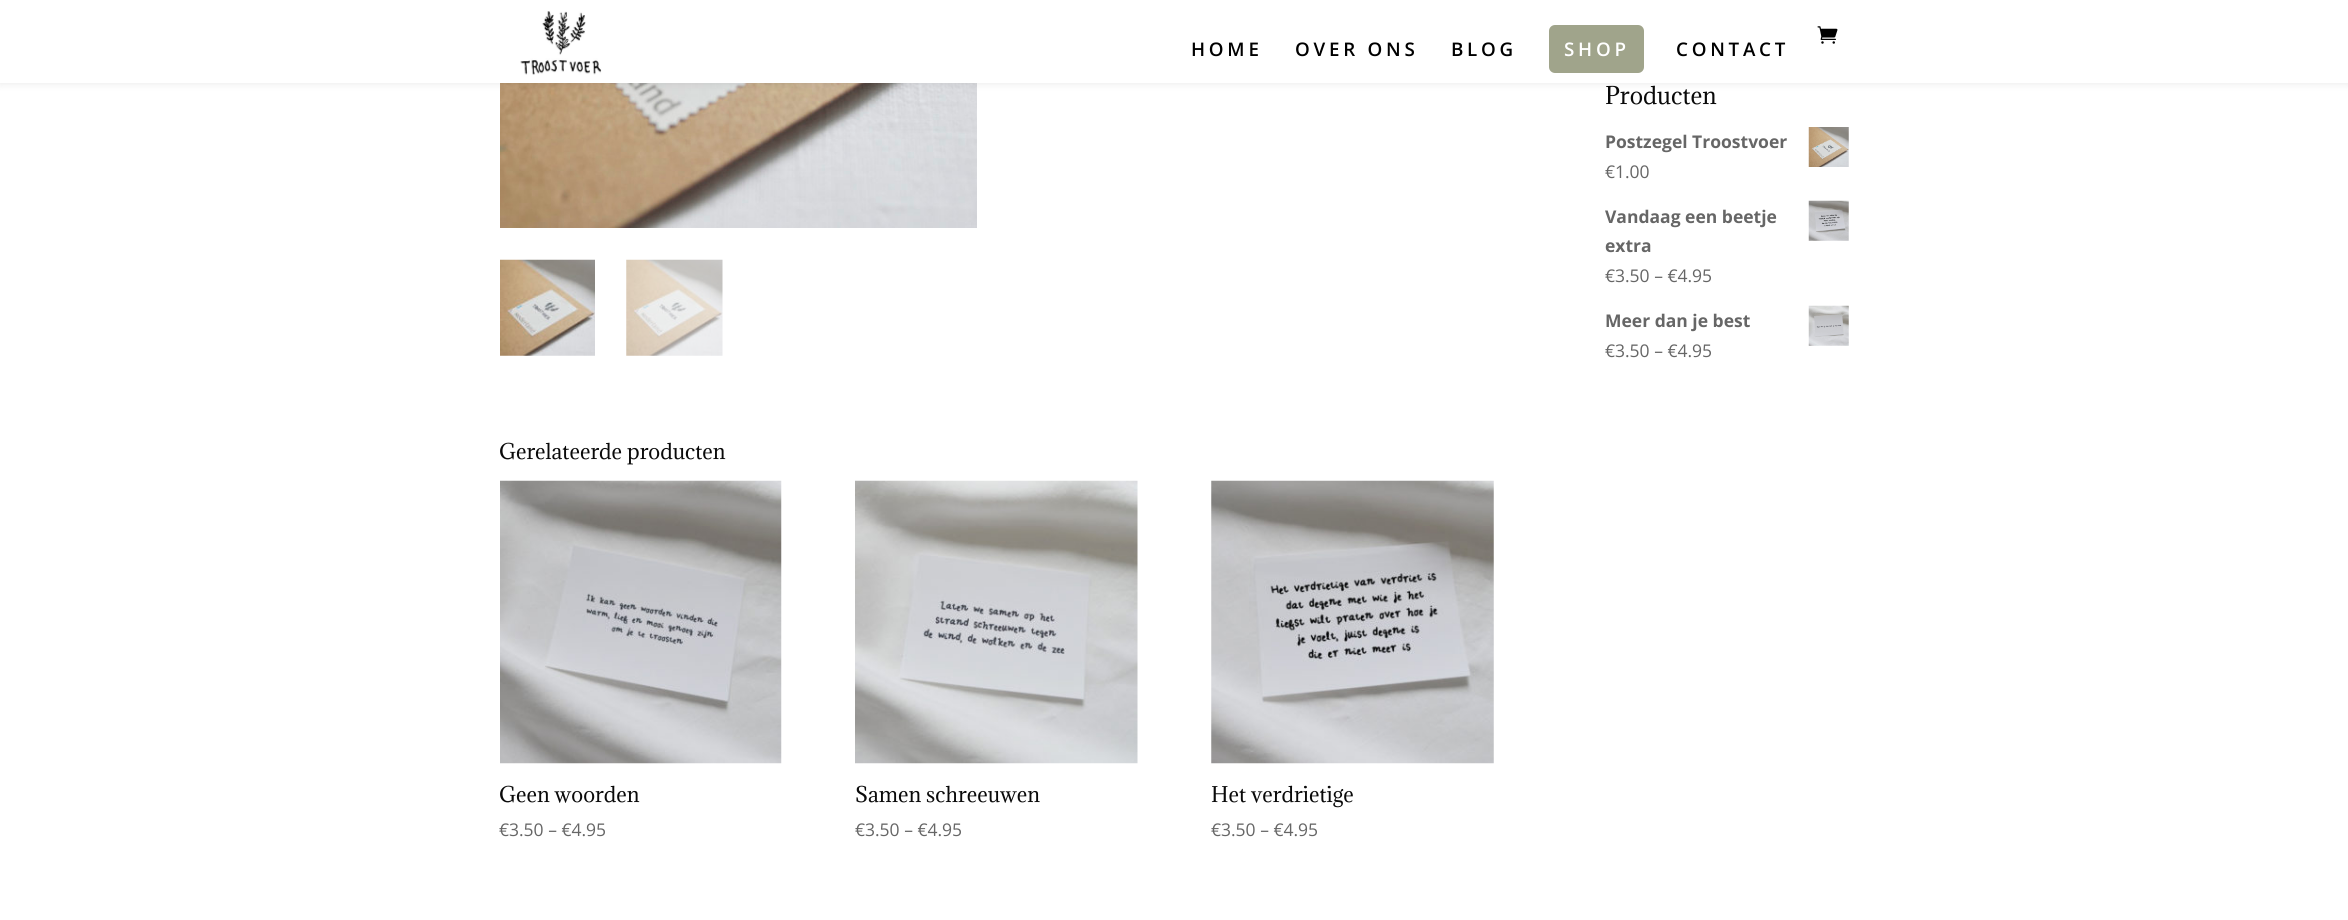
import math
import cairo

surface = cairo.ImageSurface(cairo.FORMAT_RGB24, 2348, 920)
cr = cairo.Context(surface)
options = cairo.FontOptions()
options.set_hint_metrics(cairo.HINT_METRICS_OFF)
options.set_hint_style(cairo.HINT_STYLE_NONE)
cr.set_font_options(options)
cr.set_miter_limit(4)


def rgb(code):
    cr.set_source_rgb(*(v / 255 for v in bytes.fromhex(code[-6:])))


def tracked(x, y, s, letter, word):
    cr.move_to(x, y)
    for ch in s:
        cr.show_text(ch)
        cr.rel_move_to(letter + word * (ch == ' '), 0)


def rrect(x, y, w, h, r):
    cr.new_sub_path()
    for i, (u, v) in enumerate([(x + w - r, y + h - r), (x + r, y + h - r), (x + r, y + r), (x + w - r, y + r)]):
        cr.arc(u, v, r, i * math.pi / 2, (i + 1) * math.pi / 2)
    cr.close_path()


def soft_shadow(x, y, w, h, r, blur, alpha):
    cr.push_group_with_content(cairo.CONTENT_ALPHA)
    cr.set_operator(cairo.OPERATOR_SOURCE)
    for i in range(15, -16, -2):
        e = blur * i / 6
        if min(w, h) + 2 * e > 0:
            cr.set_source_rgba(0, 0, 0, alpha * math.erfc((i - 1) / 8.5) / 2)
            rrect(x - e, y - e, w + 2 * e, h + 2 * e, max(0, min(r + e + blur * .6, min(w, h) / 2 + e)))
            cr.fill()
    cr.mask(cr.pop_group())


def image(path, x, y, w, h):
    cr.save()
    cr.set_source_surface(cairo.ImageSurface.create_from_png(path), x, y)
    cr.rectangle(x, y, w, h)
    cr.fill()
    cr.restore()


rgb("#ffffff")
cr.paint()
image("img/6.png", 500, 83, 477, 145)
rgb("#000000")
soft_shadow(0, 0, 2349, 83, 0, 4.5, 0.1)
rgb("#ffffff")
cr.rectangle(0, 0, 2348, 83)
cr.fill()
image("img/1.png", 520, 11, 82, 64)
image("img/2.png", 1817, 26, 21, 18)
rgb("#a0a48b")
rrect(1549, 25, 95, 48, 6)
cr.fill()
image("img/3.png", 1808, 127, 41, 40)
image("img/4.png", 1808, 200, 41, 41)
image("img/5.png", 1808, 305, 41, 41)
image("img/7.png", 500, 259, 95, 97)
image("img/8.png", 626, 259, 97, 97)
image("img/9.png", 500, 480, 282, 284)
image("img/10.png", 855, 480, 283, 284)
image("img/11.png", 1211, 480, 283, 284)
cr.select_font_face("Open Sans SemiBold")
cr.set_font_size(18.75)
rgb("#000000")
for x, y, s in [
    (1191, 56, "HOME"),
    (1295, 56, "OVER ONS"),
    (1451, 56, "BLOG"),
]:
    tracked(x, y, s, 3.75, 0)
rgb("#ffffff")
tracked(1564, 56, "SHOP", 3.75, 0)
rgb("#000000")
tracked(1676, 56, "CONTACT", 3.75, 0)
cr.select_font_face("Adamina")
cr.set_font_size(22.5)
rgb("#0a0a0a")
cr.move_to(1605, 104)
cr.show_text("Producten")
cr.select_font_face("Open Sans", cairo.FONT_SLANT_NORMAL, cairo.FONT_WEIGHT_BOLD)
cr.set_font_size(17.5)
rgb("#666666")
cr.move_to(1605, 148)
cr.show_text("Postzegel Troostvoer")
cr.select_font_face("Open Sans")
cr.move_to(1605, 178)
cr.show_text("€1.00")
cr.select_font_face("Open Sans", cairo.FONT_SLANT_NORMAL, cairo.FONT_WEIGHT_BOLD)
cr.move_to(1605, 223)
cr.show_text("Vandaag een beetje")
cr.move_to(1605, 252)
cr.show_text("extra")
cr.select_font_face("Open Sans")
cr.move_to(1605, 282)
cr.show_text("€3.50 – €4.95")
cr.select_font_face("Open Sans", cairo.FONT_SLANT_NORMAL, cairo.FONT_WEIGHT_BOLD)
cr.move_to(1605, 327)
cr.show_text("Meer dan je best")
cr.select_font_face("Open Sans")
cr.move_to(1605, 357)
cr.show_text("€3.50 – €4.95")
cr.select_font_face("Adamina")
cr.set_font_size(20)
rgb("#0a0a0a")
cr.move_to(499, 459)
cr.show_text("Gerelateerde producten")
cr.move_to(499, 802)
cr.show_text("Geen woorden")
cr.select_font_face("Open Sans")
cr.set_font_size(17.5)
rgb("#666666")
cr.move_to(499, 836)
cr.show_text("€3.50 – €4.95")
cr.select_font_face("Adamina")
cr.set_font_size(20)
rgb("#0a0a0a")
cr.move_to(855, 802)
cr.show_text("Samen schreeuwen")
cr.select_font_face("Open Sans")
cr.set_font_size(17.5)
rgb("#666666")
cr.move_to(855, 836)
cr.show_text("€3.50 – €4.95")
cr.select_font_face("Adamina")
cr.set_font_size(20)
rgb("#0a0a0a")
cr.move_to(1211, 802)
cr.show_text("Het verdrietige")
cr.select_font_face("Open Sans")
cr.set_font_size(17.5)
rgb("#666666")
cr.move_to(1211, 836)
cr.show_text("€3.50 – €4.95")
surface.write_to_png("page.png")
